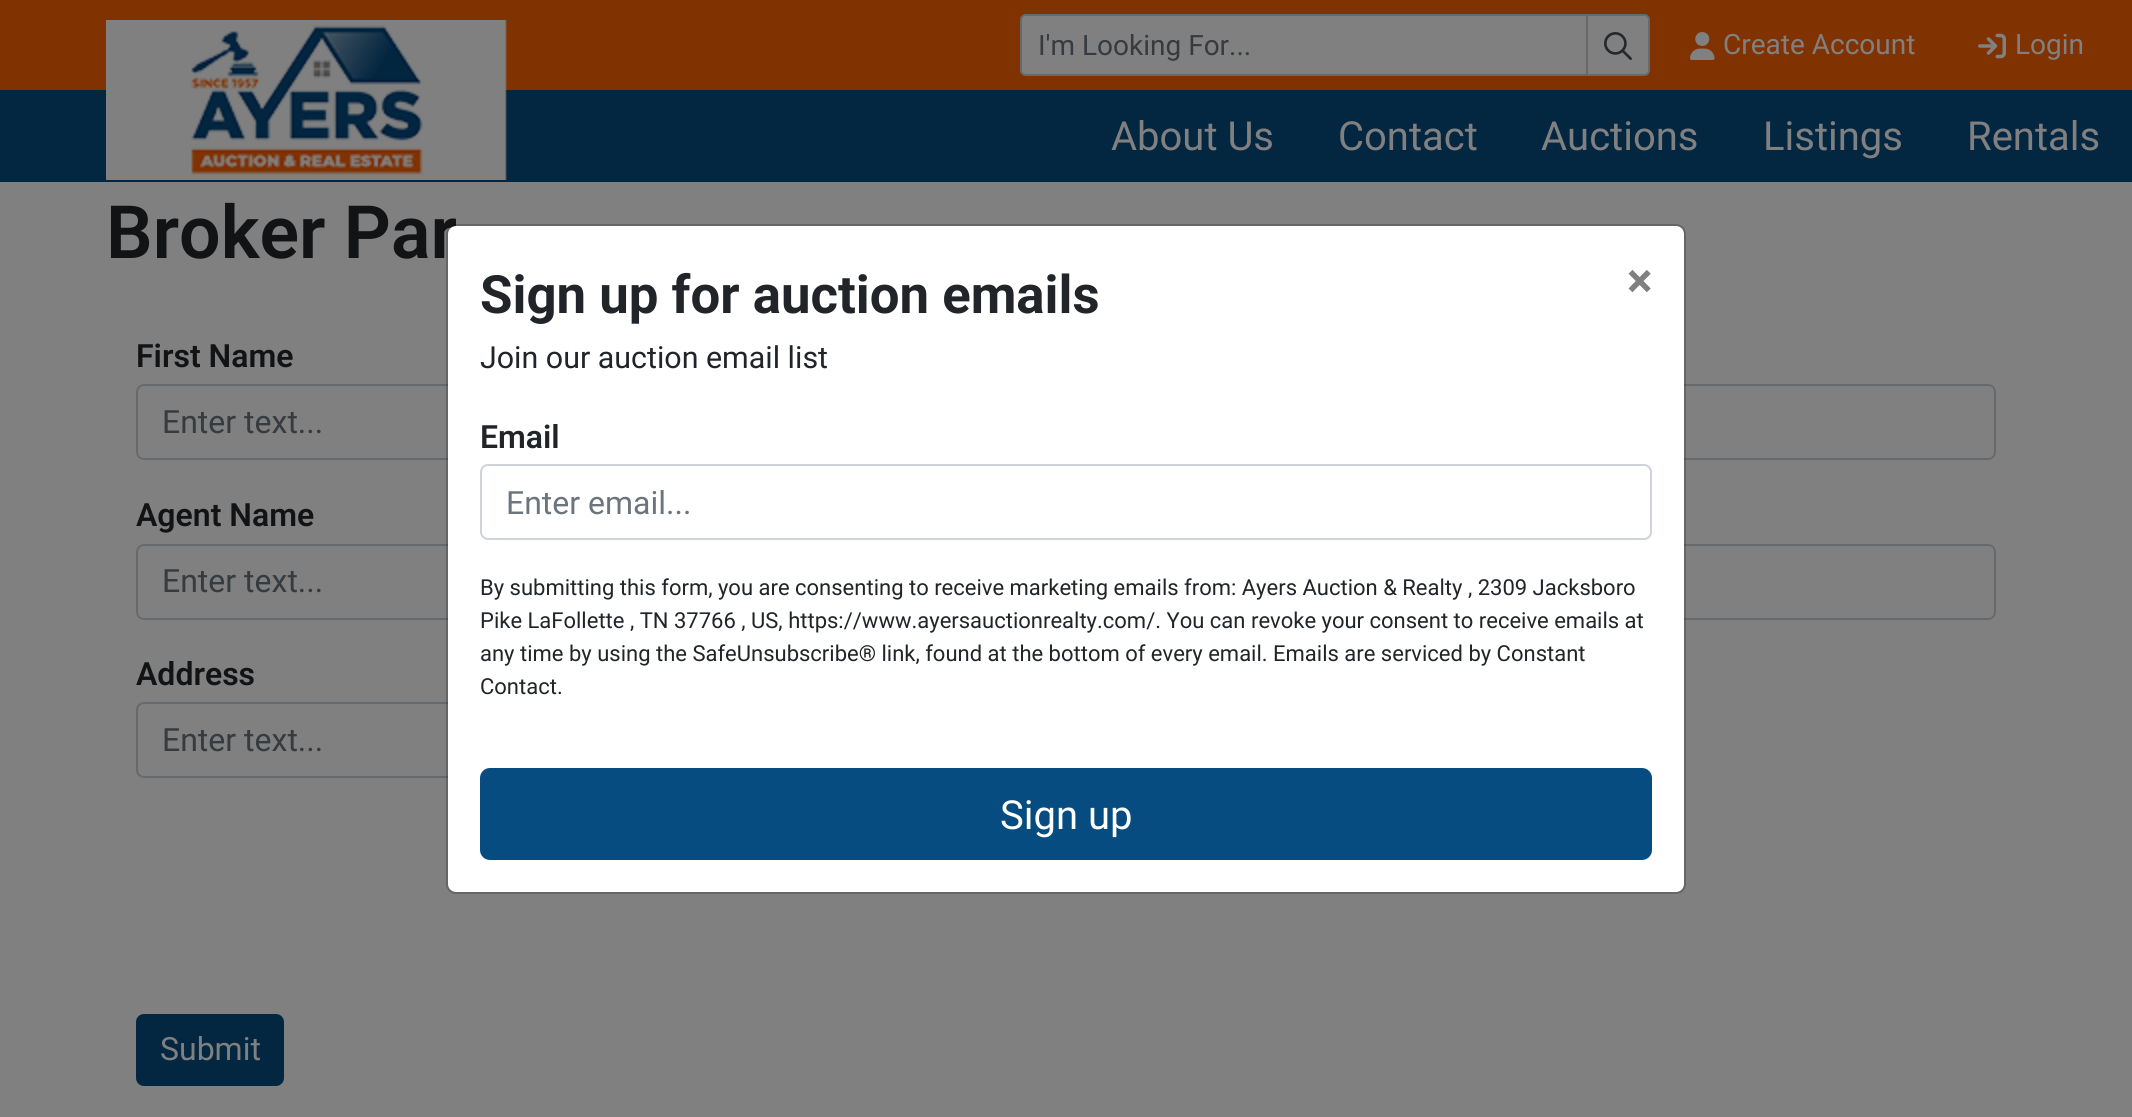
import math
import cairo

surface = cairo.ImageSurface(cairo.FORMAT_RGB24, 2132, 1117)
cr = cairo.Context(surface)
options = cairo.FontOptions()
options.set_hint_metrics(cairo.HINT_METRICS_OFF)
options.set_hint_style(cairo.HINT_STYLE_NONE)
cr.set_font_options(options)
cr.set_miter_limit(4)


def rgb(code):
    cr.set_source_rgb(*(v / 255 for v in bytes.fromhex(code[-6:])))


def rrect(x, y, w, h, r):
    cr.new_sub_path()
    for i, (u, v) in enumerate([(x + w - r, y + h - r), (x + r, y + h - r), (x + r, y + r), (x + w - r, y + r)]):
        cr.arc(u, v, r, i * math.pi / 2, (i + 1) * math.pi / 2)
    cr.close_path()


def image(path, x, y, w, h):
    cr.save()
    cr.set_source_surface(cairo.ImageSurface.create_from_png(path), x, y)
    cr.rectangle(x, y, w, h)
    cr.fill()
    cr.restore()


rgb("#808080")
cr.paint()
rgb("#803300")
cr.rectangle(0, 0, 2132, 90)
cr.fill()
rgb("#032641")
cr.rectangle(0, 90, 2132, 92)
cr.fill()
image("img/1.png", 106, 20, 401, 160)
rgb("#808080")
cr.new_path()
cr.move_to(1587, 15)
cr.line_to(1644, 15)
cr.curve_to(1647, 15, 1649, 17, 1649, 20)
cr.line_to(1649, 70)
cr.curve_to(1649, 73, 1647, 75, 1644, 75)
cr.line_to(1587, 75)
cr.close_path()
cr.fill_preserve()
rgb("#676a6d")
cr.stroke()
rgb("#808080")
cr.new_path()
cr.move_to(1026, 15)
cr.line_to(1587, 15)
cr.line_to(1587, 75)
cr.line_to(1026, 75)
cr.curve_to(1023, 75, 1021, 73, 1021, 70)
cr.line_to(1021, 20)
cr.curve_to(1021, 17, 1023, 15, 1026, 15)
cr.close_path()
cr.fill_preserve()
rgb("#676a6d")
cr.stroke()
image("img/2.png", 1604, 32, 28, 28)
image("img/3.png", 1690, 32, 25, 28)
image("img/4.png", 1978, 33, 28, 26)
rrect(137, 385, 898, 74, 7)
cr.stroke()
rrect(1097, 385, 898, 74, 7)
cr.stroke()
rrect(137, 545, 898, 74, 7)
cr.stroke()
rrect(1097, 545, 898, 74, 7)
cr.stroke()
rrect(137, 703, 898, 74, 7)
cr.stroke()
rgb("#032641")
rrect(136, 1014, 148, 72, 8)
cr.fill()
cr.select_font_face("Roboto")
cr.set_font_size(28)
rgb("#363b3f")
cr.move_to(1038, 55)
cr.show_text("I'm Looking For...")
rgb("#808080")
cr.move_to(1723, 54)
cr.show_text("Create Account")
cr.move_to(2015, 54)
cr.show_text("Login")
cr.set_font_size(40)
for x, y, s in [
    (1111, 150, "About Us"),
    (1338, 150, "Contact"),
    (1541, 150, "Auctions"),
    (1763, 150, "Listings"),
    (1967, 150, "Rentals"),
]:
    cr.move_to(x, y)
    cr.show_text(s)
cr.select_font_face("Roboto SemiBold")
cr.set_font_size(73.5)
rgb("#111315")
cr.move_to(106, 258)
cr.show_text("Broker Par")
cr.set_font_size(32)
cr.move_to(136, 367)
cr.show_text("First Name")
cr.select_font_face("Roboto")
rgb("#363b3f")
cr.move_to(162, 433)
cr.show_text("Enter text...")
cr.select_font_face("Roboto SemiBold")
rgb("#111315")
cr.move_to(136, 526)
cr.show_text("Agent Name")
cr.select_font_face("Roboto")
rgb("#363b3f")
cr.move_to(162, 592)
cr.show_text("Enter text...")
cr.select_font_face("Roboto SemiBold")
rgb("#111315")
cr.move_to(136, 685)
cr.show_text("Address")
cr.select_font_face("Roboto")
rgb("#363b3f")
cr.move_to(162, 751)
cr.show_text("Enter text...")
rgb("#808080")
cr.move_to(160, 1060)
cr.show_text("Submit")
rgb("#ffffff")
rrect(448, 226, 1236, 666, 8)
cr.fill()
rrect(447, 225, 1238, 668, 9)
cr.set_source_rgba(0, 0, 0, 0.2)
cr.stroke()
cr.select_font_face("Roboto", cairo.FONT_SLANT_NORMAL, cairo.FONT_WEIGHT_BOLD)
cr.set_font_size(52.75)
rgb("#212529")
cr.move_to(480, 313)
cr.show_text("Sign up for auction emails")
cr.select_font_face("Roboto")
cr.set_font_size(30.4)
cr.move_to(480, 368)
cr.show_text("Join our auction email list")
cr.select_font_face("Roboto", cairo.FONT_SLANT_NORMAL, cairo.FONT_WEIGHT_BOLD)
cr.set_font_size(48)
rgb("#808080")
cr.move_to(1627, 297)
cr.show_text("×")
cr.select_font_face("Roboto SemiBold")
cr.set_font_size(32)
rgb("#212529")
cr.move_to(480, 448)
cr.show_text("Email")
rrect(481, 465, 1170, 74, 7)
rgb("#ced4da")
cr.stroke()
cr.select_font_face("Roboto")
rgb("#6c757d")
cr.move_to(506, 514)
cr.show_text("Enter email...")
cr.set_font_size(22)
rgb("#212529")
for x, y, s in [
    (480, 595, "By submitting this form, you are consenting to receive marketing emails from: Ayers Auction & Realty , 2309 Jacksboro"),
    (480, 628, "Pike LaFollette , TN 37766 , US, https://www.ayersauctionrealty.com/. You can revoke your consent to receive emails at"),
    (480, 661, "any time by using the SafeUnsubscribe® link, found at the bottom of every email. Emails are serviced by Constant"),
    (480, 694, "Contact."),
]:
    cr.move_to(x, y)
    cr.show_text(s)
rgb("#064c81")
rrect(480, 768, 1172, 92, 10)
cr.fill()
cr.set_font_size(40)
rgb("#ffffff")
cr.move_to(1000, 829)
cr.show_text("Sign up")
surface.write_to_png("page.png")
